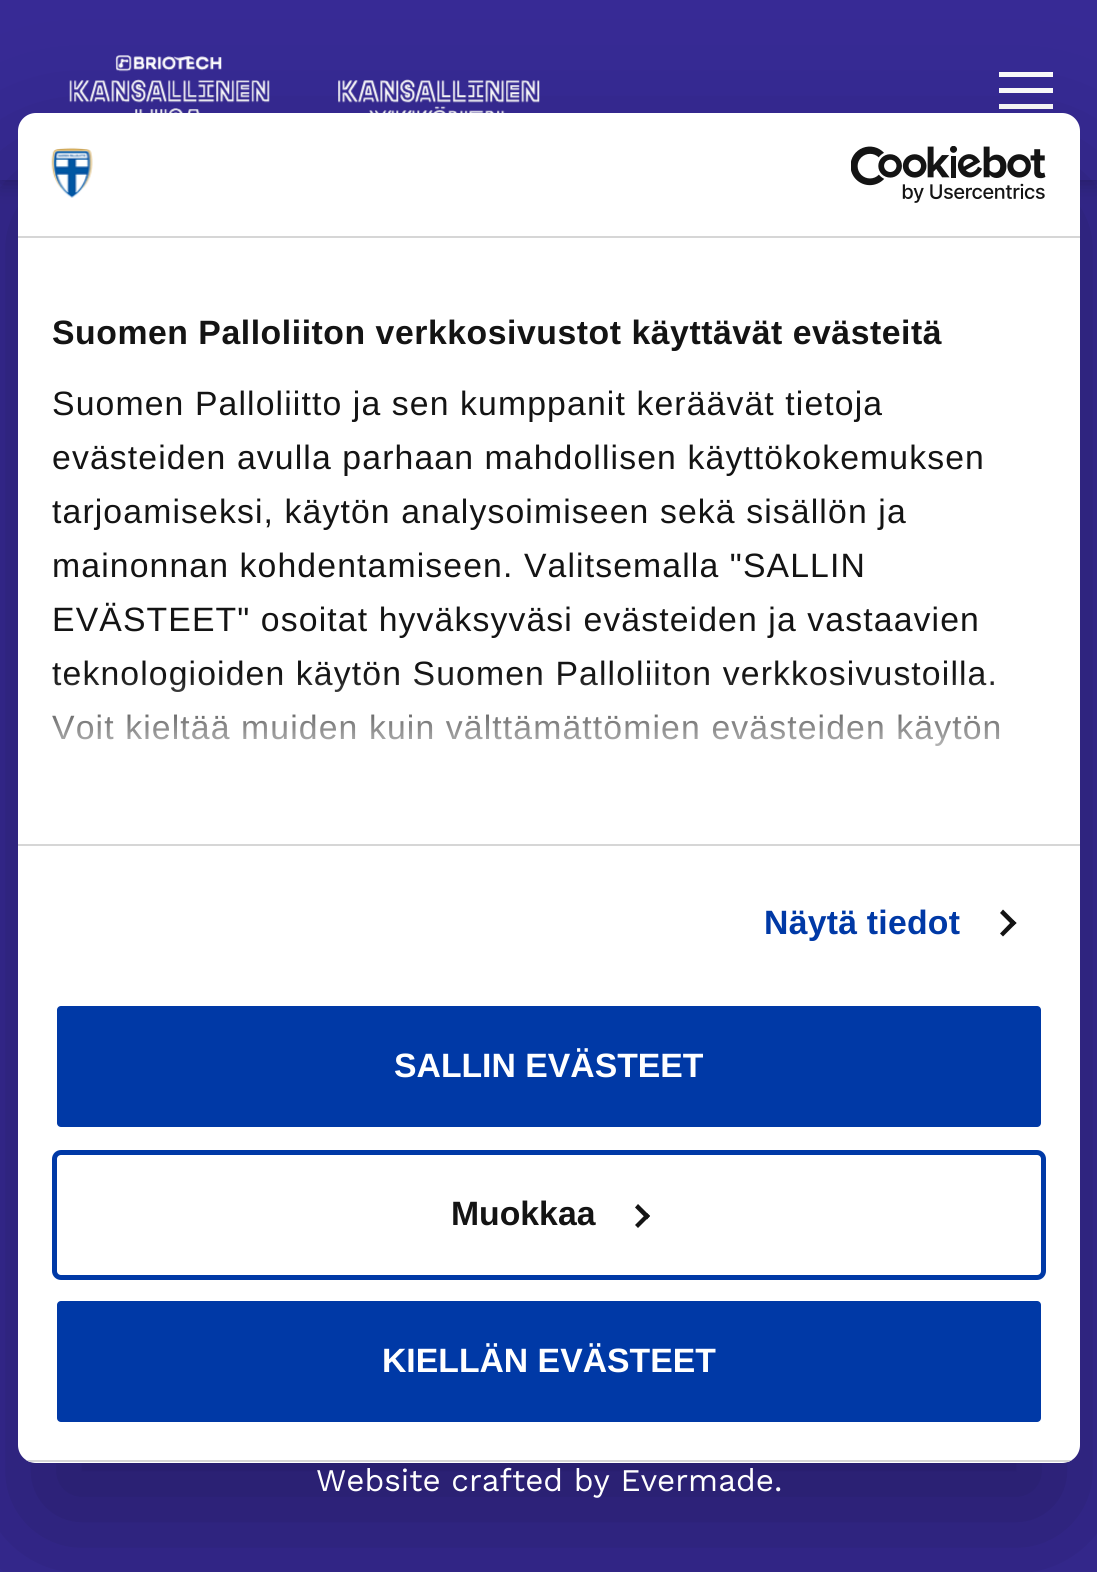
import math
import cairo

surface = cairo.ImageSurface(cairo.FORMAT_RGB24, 1097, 1572)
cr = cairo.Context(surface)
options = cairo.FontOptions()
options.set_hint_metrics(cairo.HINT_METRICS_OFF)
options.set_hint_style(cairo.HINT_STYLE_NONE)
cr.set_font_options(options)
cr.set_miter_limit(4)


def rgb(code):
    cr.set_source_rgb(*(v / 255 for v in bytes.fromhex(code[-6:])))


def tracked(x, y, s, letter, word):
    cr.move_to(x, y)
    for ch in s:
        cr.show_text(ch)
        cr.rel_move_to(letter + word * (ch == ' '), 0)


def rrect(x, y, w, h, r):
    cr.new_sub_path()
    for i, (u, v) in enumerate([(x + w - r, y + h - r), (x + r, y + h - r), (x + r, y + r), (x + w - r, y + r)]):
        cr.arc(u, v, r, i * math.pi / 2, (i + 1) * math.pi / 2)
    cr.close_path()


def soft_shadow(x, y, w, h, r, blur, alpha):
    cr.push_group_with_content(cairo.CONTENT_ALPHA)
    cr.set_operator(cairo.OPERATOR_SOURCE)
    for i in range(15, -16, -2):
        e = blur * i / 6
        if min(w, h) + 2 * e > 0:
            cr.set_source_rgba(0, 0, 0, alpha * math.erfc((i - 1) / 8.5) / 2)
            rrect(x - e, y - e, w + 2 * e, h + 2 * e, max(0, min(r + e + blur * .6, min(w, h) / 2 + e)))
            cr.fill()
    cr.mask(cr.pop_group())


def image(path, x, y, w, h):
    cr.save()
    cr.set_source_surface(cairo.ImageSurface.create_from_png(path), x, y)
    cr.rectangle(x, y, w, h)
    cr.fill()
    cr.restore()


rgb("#372a95")
cr.paint()
rgb("#000000")
soft_shadow(0, 0, 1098, 180, 0, 11, 0.3)
rgb("#372a95")
cr.rectangle(0, 0, 1097, 180)
cr.fill()
image("img/1.png", 69, 55, 201, 58)
image("img/2.png", 338, 79, 202, 34)
for x, y, w, h, color in [
    (999, 72, 54, 5, "#ffffff"),
    (999, 88, 54, 5, "#ffffff"),
    (999, 104, 54, 5, "#ffffff"),
]:
    rgb(color)
    cr.rectangle(x, y, w, h)
    cr.fill()
rgb("#000000")
soft_shadow(18, 185, 1062, 1350, 18, 76.5, 0.3)
rgb("#ffffff")
rrect(18, 113, 1062, 1350, 18)
cr.fill()
rgb("#d6d6d6")
cr.rectangle(18, 236, 1062, 2)
cr.fill()
image("img/3.png", 51, 147, 42, 51)
image("img/4.png", 851, 146, 195, 57)
cr.rectangle(18, 844, 1062, 2)
cr.fill()
rgb("#141414")
cr.new_path()
cr.move_to(1003, 909.5)
cr.line_to(1016.5, 923)
cr.line_to(1013, 926)
cr.line_to(1000, 913)
cr.close_path()
cr.fill()
cr.new_path()
cr.move_to(1013, 920)
cr.line_to(1016.5, 923)
cr.line_to(1003, 936.5)
cr.line_to(1000, 933.5)
cr.close_path()
cr.fill()
cr.save()
rrect(18, 113, 1062, 1350, 18)
cr.clip()
rgb("#d6d6d6")
cr.rectangle(18, 1460, 1062, 2)
cr.fill()
cr.restore()
rgb("#0039a6")
rrect(54.5, 1003.5, 989, 126, 6.5)
cr.fill_preserve()
rgb("#ffffff")
cr.set_line_width(5)
cr.stroke()
rrect(54.5, 1152.5, 989, 125, 6.5)
rgb("#0039a6")
cr.stroke()
rgb("#141414")
cr.new_path()
cr.move_to(638, 1204)
cr.line_to(650, 1216)
cr.line_to(647, 1219.5)
cr.line_to(635, 1207.5)
cr.close_path()
cr.fill()
cr.new_path()
cr.move_to(647, 1213)
cr.line_to(650, 1216)
cr.line_to(638, 1228)
cr.line_to(635, 1225)
cr.close_path()
cr.fill()
rgb("#0039a6")
rrect(54.5, 1298.5, 989, 126, 6.5)
cr.fill_preserve()
rgb("#ffffff")
cr.stroke()
cr.select_font_face("Liberation Sans", cairo.FONT_SLANT_NORMAL, cairo.FONT_WEIGHT_BOLD)
cr.set_font_size(33.75)
rgb("#141414")
tracked(52, 344, "Suomen Palloliiton verkkosivustot käyttävät evästeitä", 0.55, 0)
cr.select_font_face("Liberation Sans")
for x, y, s in [
    (52, 415, "Suomen Palloliitto ja sen kumppanit keräävät tietoja"),
    (52, 469, "evästeiden avulla parhaan mahdollisen käyttökokemuksen"),
    (52, 523, "tarjoamiseksi, käytön analysoimiseen sekä sisällön ja"),
    (52, 577, "mainonnan kohdentamiseen. Valitsemalla \"SALLIN"),
    (52, 631, "EVÄSTEET\" osoitat hyväksyväsi evästeiden ja vastaavien"),
    (52, 685, "teknologioiden käytön Suomen Palloliiton verkkosivustoilla."),
    (52, 739, "Voit kieltää muiden kuin välttämättömien evästeiden käytön"),
]:
    tracked(x, y, s, 1.12, 0)
gradient = cairo.LinearGradient(534, 843, 534, 674)
gradient.add_color_stop_rgba(0, 1, 1, 1, 1)
gradient.add_color_stop_rgba(0.5, 1, 1, 1, 0.8)
gradient.add_color_stop_rgba(1, 1, 1, 1, 0)
cr.set_source(gradient)
cr.rectangle(52, 676, 948, 70)
cr.fill()
cr.select_font_face("Liberation Sans", cairo.FONT_SLANT_NORMAL, cairo.FONT_WEIGHT_BOLD)
rgb("#0039a6")
tracked(764, 934, "Näytä tiedot", 0.25, 0)
rgb("#ffffff")
cr.move_to(394, 1077)
cr.show_text("SALLIN EVÄSTEET")
rgb("#141414")
cr.move_to(451, 1225)
cr.show_text("Muokkaa")
rgb("#ffffff")
cr.move_to(382, 1372)
cr.show_text("KIELLÄN EVÄSTEET")
cr.select_font_face("Work Sans")
cr.set_font_size(31.5)
cr.move_to(316, 1491)
cr.show_text("Website crafted by Evermade.")
surface.write_to_png("page.png")
